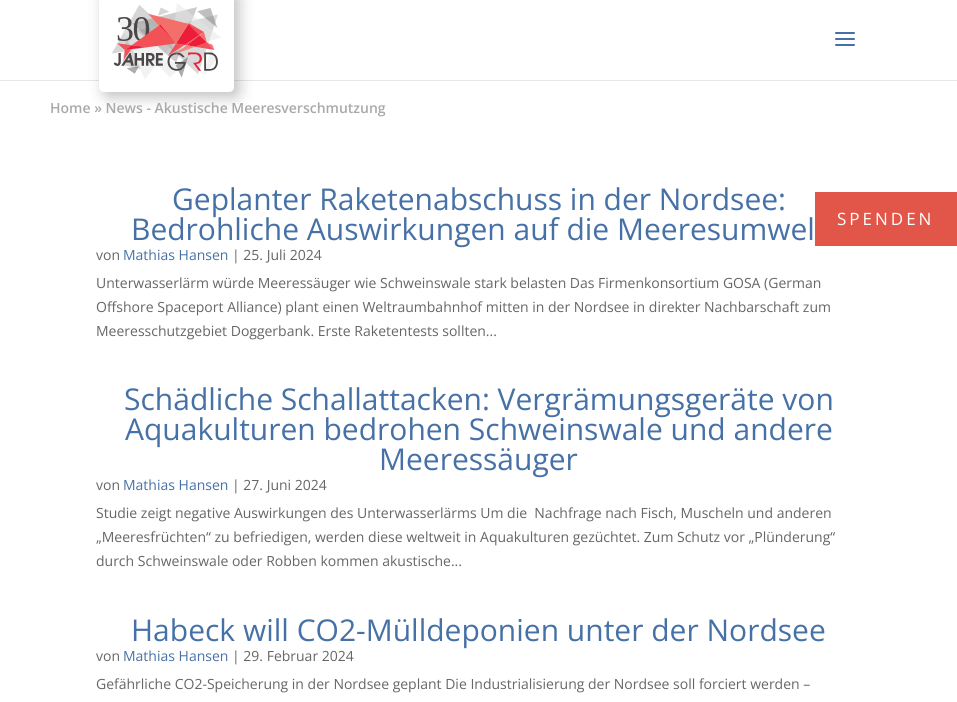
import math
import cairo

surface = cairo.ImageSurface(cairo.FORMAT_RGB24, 957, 702)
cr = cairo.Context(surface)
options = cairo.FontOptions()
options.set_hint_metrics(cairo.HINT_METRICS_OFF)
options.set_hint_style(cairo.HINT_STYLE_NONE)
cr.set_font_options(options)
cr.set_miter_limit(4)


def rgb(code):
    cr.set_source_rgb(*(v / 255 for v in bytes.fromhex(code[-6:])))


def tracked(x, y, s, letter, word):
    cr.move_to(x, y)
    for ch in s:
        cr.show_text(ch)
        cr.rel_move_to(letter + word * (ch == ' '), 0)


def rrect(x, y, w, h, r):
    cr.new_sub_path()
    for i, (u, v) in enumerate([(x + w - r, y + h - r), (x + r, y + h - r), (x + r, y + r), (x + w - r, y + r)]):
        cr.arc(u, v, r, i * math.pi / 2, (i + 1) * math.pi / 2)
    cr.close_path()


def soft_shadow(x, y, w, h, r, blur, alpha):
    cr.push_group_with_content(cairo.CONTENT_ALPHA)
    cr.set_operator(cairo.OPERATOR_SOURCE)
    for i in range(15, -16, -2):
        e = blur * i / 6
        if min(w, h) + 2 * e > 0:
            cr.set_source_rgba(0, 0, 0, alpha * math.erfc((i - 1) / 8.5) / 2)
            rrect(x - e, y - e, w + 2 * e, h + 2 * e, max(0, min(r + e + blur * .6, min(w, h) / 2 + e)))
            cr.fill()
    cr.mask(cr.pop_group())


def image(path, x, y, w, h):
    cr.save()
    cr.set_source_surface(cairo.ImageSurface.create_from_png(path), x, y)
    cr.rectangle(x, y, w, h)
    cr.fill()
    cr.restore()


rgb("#ffffff")
cr.paint()
rgb("#e6e6e6")
cr.rectangle(0, 80, 957, 1)
cr.fill()
rgb("#000000")
soft_shadow(104, -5, 135, 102, 5, 7.5, 0.25)
rgb("#ffffff")
cr.new_path()
cr.move_to(99, -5)
cr.line_to(234, -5)
cr.line_to(234, 87)
cr.curve_to(234, 90, 232, 92, 229, 92)
cr.line_to(104, 92)
cr.curve_to(101, 92, 99, 90, 99, 87)
cr.close_path()
cr.fill()
image("img/1.png", 112, 3, 109, 76)
image("img/2.png", 835, 32, 20, 14)
rgb("#e25649")
cr.rectangle(815, 192, 142, 54)
cr.fill()
cr.select_font_face("Open Sans SemiBold")
cr.set_font_size(14)
rgb("#a9a9a9")
cr.move_to(50, 113)
cr.show_text("Home » News - Akustische Meeresverschmutzung")
cr.select_font_face("Open Sans")
cr.set_font_size(30)
rgb("#4671a6")
cr.move_to(172, 210)
cr.show_text("Geplanter Raketenabschuss in der Nordsee:")
cr.move_to(131, 240)
cr.show_text("Bedrohliche Auswirkungen auf die Meeresumwel")
cr.set_font_size(14)
rgb("#666666")
cr.move_to(96, 260)
cr.show_text("von")
rgb("#4671a6")
cr.move_to(123, 260)
cr.show_text("Mathias Hansen")
rgb("#666666")
for x, y, s in [
    (232, 260, "| 25. Juli 2024"),
    (96, 288, "Unterwasserlärm würde Meeressäuger wie Schweinswale stark belasten Das Firmenkonsortium GOSA (German"),
    (96, 312, "Offshore Spaceport Alliance) plant einen Weltraumbahnhof mitten in der Nordsee in direkter Nachbarschaft zum"),
    (96, 336, "Meeresschutzgebiet Doggerbank. Erste Raketentests sollten..."),
]:
    cr.move_to(x, y)
    cr.show_text(s)
cr.set_font_size(30)
rgb("#4671a6")
for x, y, s in [
    (124, 410, "Schädliche Schallattacken: Vergrämungsgeräte von"),
    (125, 440, "Aquakulturen bedrohen Schweinswale und andere"),
    (379, 470, "Meeressäuger"),
]:
    cr.move_to(x, y)
    cr.show_text(s)
cr.set_font_size(14)
rgb("#666666")
cr.move_to(96, 490)
cr.show_text("von")
rgb("#4671a6")
cr.move_to(123, 490)
cr.show_text("Mathias Hansen")
rgb("#666666")
for x, y, s in [
    (232, 490, "| 27. Juni 2024"),
    (96, 518, "Studie zeigt negative Auswirkungen des Unterwasserlärms Um die  Nachfrage nach Fisch, Muscheln und anderen"),
    (96, 542, "„Meeresfrüchten“ zu befriedigen, werden diese weltweit in Aquakulturen gezüchtet. Zum Schutz vor „Plünderung“"),
    (96, 566, "durch Schweinswale oder Robben kommen akustische..."),
]:
    cr.move_to(x, y)
    cr.show_text(s)
cr.set_font_size(30)
rgb("#4671a6")
cr.move_to(131, 641)
cr.show_text("Habeck will CO2-Mülldeponien unter der Nordsee")
cr.set_font_size(14)
rgb("#666666")
cr.move_to(96, 661)
cr.show_text("von")
rgb("#4671a6")
cr.move_to(123, 661)
cr.show_text("Mathias Hansen")
rgb("#666666")
cr.move_to(232, 661)
cr.show_text("| 29. Februar 2024")
cr.move_to(96, 689)
cr.show_text("Gefährliche CO2-Speicherung in der Nordsee geplant Die Industrialisierung der Nordsee soll forciert werden –")
cr.set_font_size(17)
rgb("#ffffff")
tracked(837, 225, "SPENDEN", 3, 0)
surface.write_to_png("page.png")
